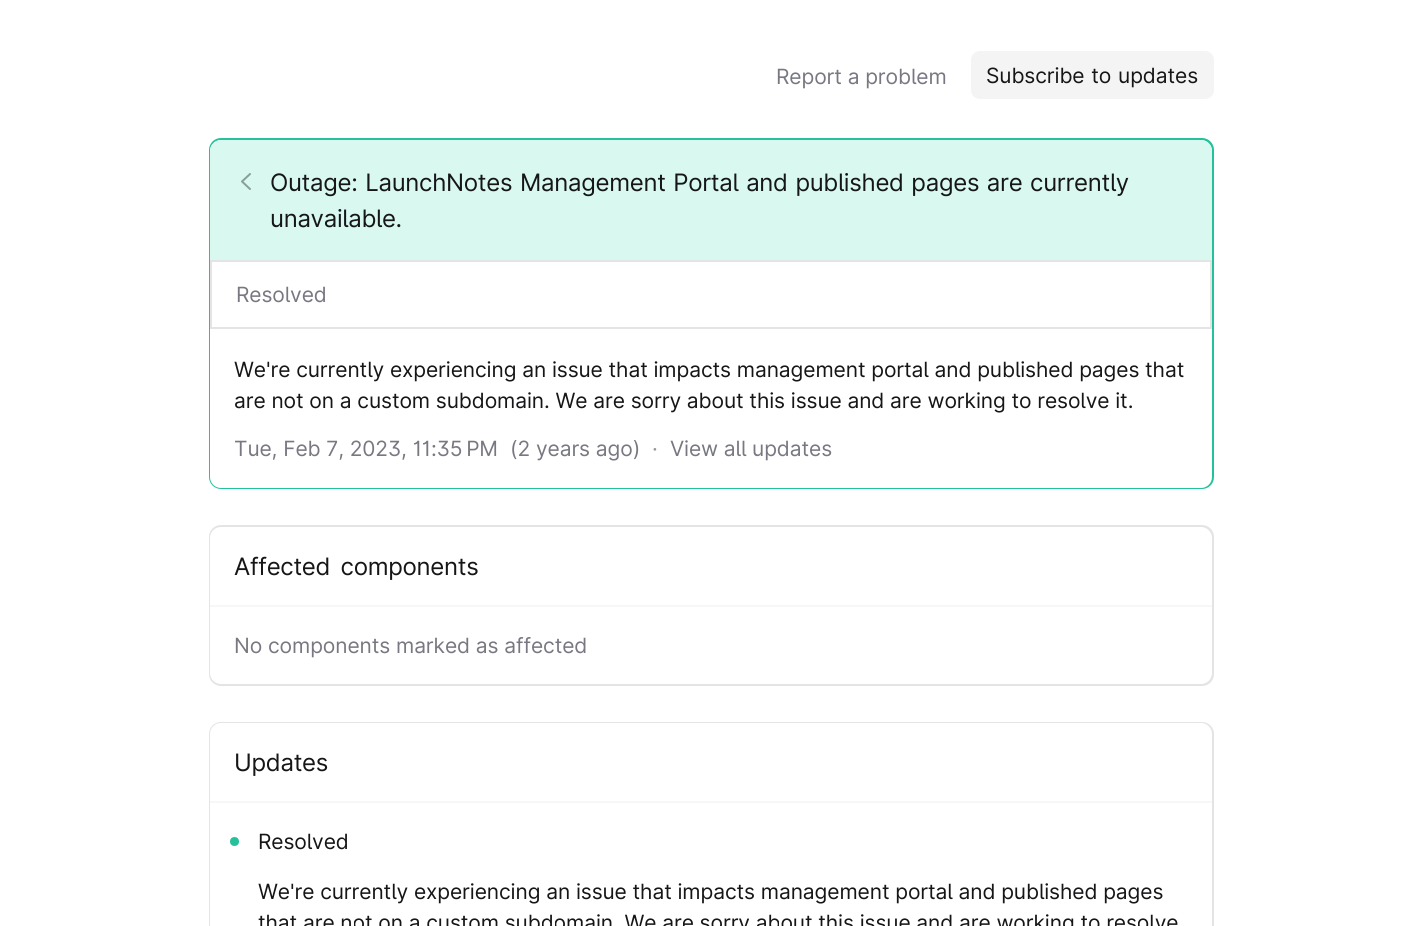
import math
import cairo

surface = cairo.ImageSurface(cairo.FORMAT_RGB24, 1421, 926)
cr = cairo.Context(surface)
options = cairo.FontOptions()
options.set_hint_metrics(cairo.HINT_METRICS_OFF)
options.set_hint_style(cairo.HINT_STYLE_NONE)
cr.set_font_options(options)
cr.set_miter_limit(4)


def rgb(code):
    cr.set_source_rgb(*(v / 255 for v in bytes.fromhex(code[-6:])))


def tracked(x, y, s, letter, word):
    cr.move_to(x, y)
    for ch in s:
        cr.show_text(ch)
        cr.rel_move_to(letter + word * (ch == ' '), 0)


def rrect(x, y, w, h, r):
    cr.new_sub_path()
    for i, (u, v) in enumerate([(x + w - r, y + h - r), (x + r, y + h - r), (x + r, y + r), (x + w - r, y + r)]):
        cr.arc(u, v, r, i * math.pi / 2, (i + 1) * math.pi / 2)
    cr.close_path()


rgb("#ffffff")
cr.paint()
rgb("#f4f4f5")
rrect(971, 51, 243, 48, 9)
cr.fill()
rgb("#24c19a")
rrect(209, 138, 1005, 351, 12)
cr.fill()
rgb("#ffffff")
rrect(210, 140, 1002, 348, 11)
cr.fill()
rgb("#d8f8f0")
cr.new_path()
cr.move_to(221, 140)
cr.line_to(1201, 140)
cr.curve_to(1207, 140, 1212, 145, 1212, 151)
cr.line_to(1212, 260)
cr.line_to(210, 260)
cr.line_to(210, 151)
cr.curve_to(210, 145, 215, 140, 221, 140)
cr.close_path()
cr.fill()
cr.new_path()
cr.move_to(250, 189)
cr.line_to(242, 181.5)
cr.line_to(250, 174)
rgb("#8a9e9a")
cr.set_line_cap(cairo.LINE_CAP_ROUND)
cr.set_line_join(cairo.LINE_JOIN_ROUND)
cr.stroke()
cr.rectangle(211, 261, 1000, 67)
rgb("#e4e4e7")
cr.set_line_cap(cairo.LINE_CAP_BUTT)
cr.set_line_join(cairo.LINE_JOIN_MITER)
cr.stroke()
rrect(209, 525, 1005, 161, 12)
cr.fill()
rgb("#ffffff")
rrect(210, 527, 1002, 157, 11)
cr.fill()
rgb("#f7f7f8")
cr.rectangle(210, 605, 1002, 2)
cr.fill()
rgb("#e4e4e7")
rrect(209, 722, 1005, 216, 12)
cr.fill()
rgb("#ffffff")
rrect(210, 723, 1002, 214, 11)
cr.fill()
rgb("#f7f7f8")
cr.rectangle(210, 801, 1002, 2)
cr.fill()
rgb("#24c19a")
cr.arc(234.5, 841.5, 4.5, 0, 2 * math.pi)
cr.fill()
cr.select_font_face("Inter")
cr.set_font_size(21)
rgb("#787882")
tracked(776, 84, "Report a problem", -0.1, 0)
rgb("#161618")
tracked(986, 83, "Subscribe to updates", -0.1, 1)
cr.set_font_size(24)
tracked(270, 191, "Outage: LaunchNotes Management Portal and published pages are currently", -0.3, 1.25)
tracked(270, 227, "unavailable.", -0.3, 0)
cr.set_font_size(21)
rgb("#787882")
tracked(236, 302, "Resolved", -0.1, 0)
rgb("#161618")
tracked(234, 377, "We're currently experiencing an issue that impacts management portal and published pages that", -0.1, 0)
tracked(234, 408, "are not on a custom subdomain. We are sorry about this issue and are working to resolve it.", -0.1, 0)
rgb("#787882")
tracked(234, 456, "Tue, Feb 7, 2023, 11:35 PM", -0.1, 0)
tracked(510, 456, "(2 years ago)", -0.1, 0)
rgb("#95959d")
tracked(652, 456, "·", -0.1, 0)
rgb("#787882")
tracked(670, 456, "View all updates", -0.1, 0)
cr.set_font_size(24)
rgb("#161618")
tracked(234, 575, "Affected components", -0.3, 4)
cr.set_font_size(21)
rgb("#787882")
tracked(234, 653, "No components marked as affected", -0.1, 0)
cr.set_font_size(24)
rgb("#161618")
tracked(234, 771, "Updates", -0.3, 0)
cr.set_font_size(21)
for x, y, s in [
    (258, 849, "Resolved"),
    (258, 899, "We're currently experiencing an issue that impacts management portal and published pages"),
    (258, 930, "that are not on a custom subdomain. We are sorry about this issue and are working to resolve"),
]:
    tracked(x, y, s, -0.1, 0)
surface.write_to_png("page.png")
